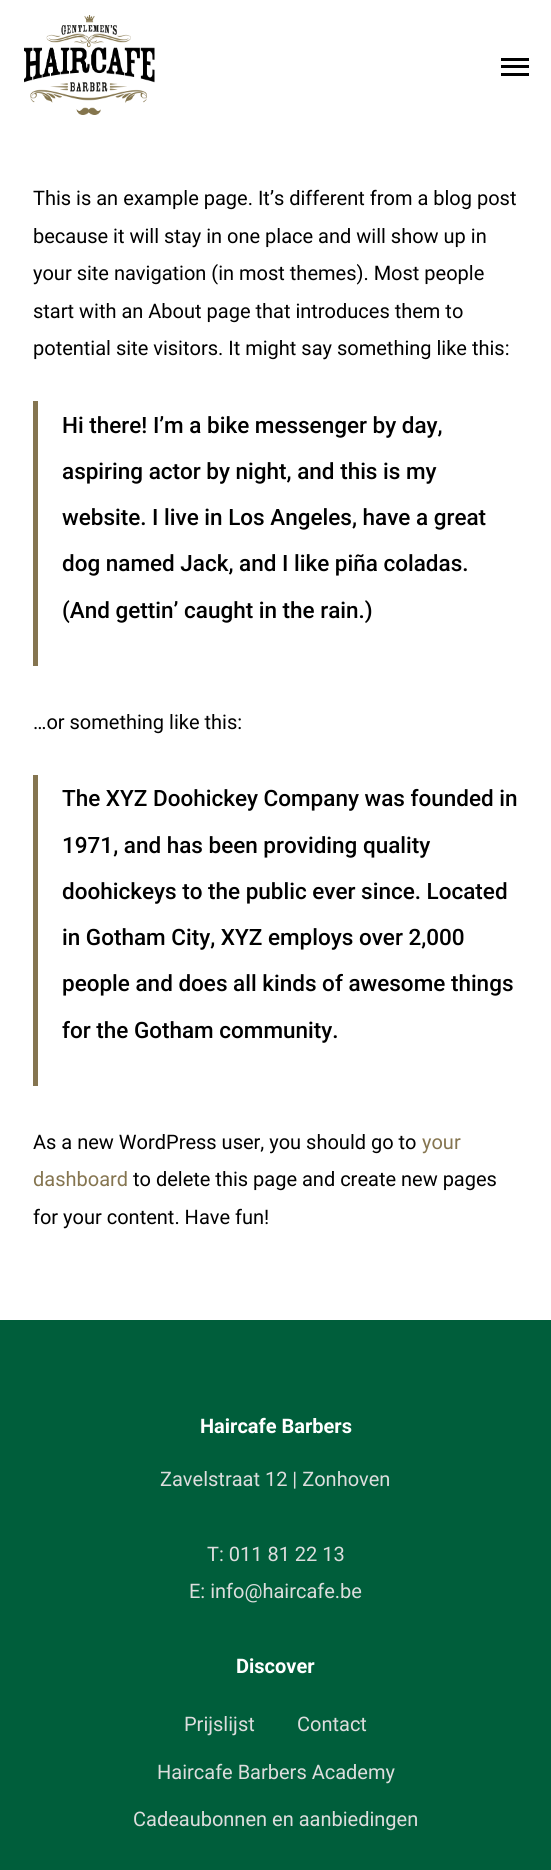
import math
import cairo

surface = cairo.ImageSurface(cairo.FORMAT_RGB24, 551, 1870)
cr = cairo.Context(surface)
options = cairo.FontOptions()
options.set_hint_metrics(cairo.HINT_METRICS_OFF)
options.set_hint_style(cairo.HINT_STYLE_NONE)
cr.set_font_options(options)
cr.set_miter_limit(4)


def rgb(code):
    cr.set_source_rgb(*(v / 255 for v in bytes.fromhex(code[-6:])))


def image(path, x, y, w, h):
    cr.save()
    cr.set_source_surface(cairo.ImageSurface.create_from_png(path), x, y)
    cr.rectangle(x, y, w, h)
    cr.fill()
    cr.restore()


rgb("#ffffff")
cr.paint()
image("img/1.png", 24, 15, 131, 100)
for x, y, w, h, color in [
    (501, 58, 28, 3, "#000000"),
    (501, 73, 28, 3, "#000000"),
    (501, 65, 28, 3, "#000000"),
    (33, 401, 5, 265, "#857550"),
    (33, 775, 5, 311, "#857550"),
    (0, 1320, 551, 550, "#005e3b"),
]:
    rgb(color)
    cr.rectangle(x, y, w, h)
    cr.fill()
cr.select_font_face("Roboto")
cr.set_font_size(20)
rgb("#000000")
for x, y, s in [
    (33, 205, "This is an example page. It’s different from a blog post"),
    (33, 243, "because it will stay in one place and will show up in"),
    (33, 280, "your site navigation (in most themes). Most people"),
    (33, 318, "start with an About page that introduces them to"),
    (33, 355, "potential site visitors. It might say something like this:"),
]:
    cr.move_to(x, y)
    cr.show_text(s)
cr.select_font_face("Roboto Medium")
cr.set_font_size(22.5)
for x, y, s in [
    (62, 433, "Hi there! I’m a bike messenger by day,"),
    (62, 479, "aspiring actor by night, and this is my"),
    (62, 525, "website. I live in Los Angeles, have a great"),
    (62, 571, "dog named Jack, and I like piña coladas."),
    (62, 618, "(And gettin’ caught in the rain.)"),
]:
    cr.move_to(x, y)
    cr.show_text(s)
cr.select_font_face("Roboto")
cr.set_font_size(20)
cr.move_to(33, 729)
cr.show_text("…or something like this:")
cr.select_font_face("Roboto Medium")
cr.set_font_size(22.5)
for x, y, s in [
    (62, 806, "The XYZ Doohickey Company was founded in"),
    (62, 853, "1971, and has been providing quality"),
    (62, 899, "doohickeys to the public ever since. Located"),
    (62, 945, "in Gotham City, XYZ employs over 2,000"),
    (62, 991, "people and does all kinds of awesome things"),
    (62, 1038, "for the Gotham community."),
]:
    cr.move_to(x, y)
    cr.show_text(s)
cr.select_font_face("Roboto")
cr.set_font_size(20)
cr.move_to(33, 1149)
cr.show_text("As a new WordPress user, you should go to")
rgb("#857550")
cr.move_to(422, 1149)
cr.show_text("your")
cr.move_to(33, 1186)
cr.show_text("dashboard")
rgb("#000000")
cr.move_to(133, 1186)
cr.show_text("to delete this page and create new pages")
cr.move_to(33, 1224)
cr.show_text("for your content. Have fun!")
cr.select_font_face("Roboto", cairo.FONT_SLANT_NORMAL, cairo.FONT_WEIGHT_BOLD)
rgb("#ffffff")
cr.move_to(200, 1433)
cr.show_text("Haircafe Barbers")
cr.select_font_face("Roboto")
rgb("#dddddd")
for x, y, s in [
    (160, 1486, "Zavelstraat 12 | Zonhoven"),
    (207, 1561, "T: 011 81 22 13"),
    (189, 1598, "E: info@haircafe.be"),
]:
    cr.move_to(x, y)
    cr.show_text(s)
cr.select_font_face("Roboto", cairo.FONT_SLANT_NORMAL, cairo.FONT_WEIGHT_BOLD)
rgb("#ffffff")
cr.move_to(236, 1673)
cr.show_text("Discover")
cr.select_font_face("Roboto")
rgb("#dddddd")
for x, y, s in [
    (184, 1731, "Prijslijst"),
    (297, 1731, "Contact"),
    (157, 1779, "Haircafe Barbers Academy"),
    (133, 1826, "Cadeaubonnen en aanbiedingen"),
]:
    cr.move_to(x, y)
    cr.show_text(s)
surface.write_to_png("page.png")
